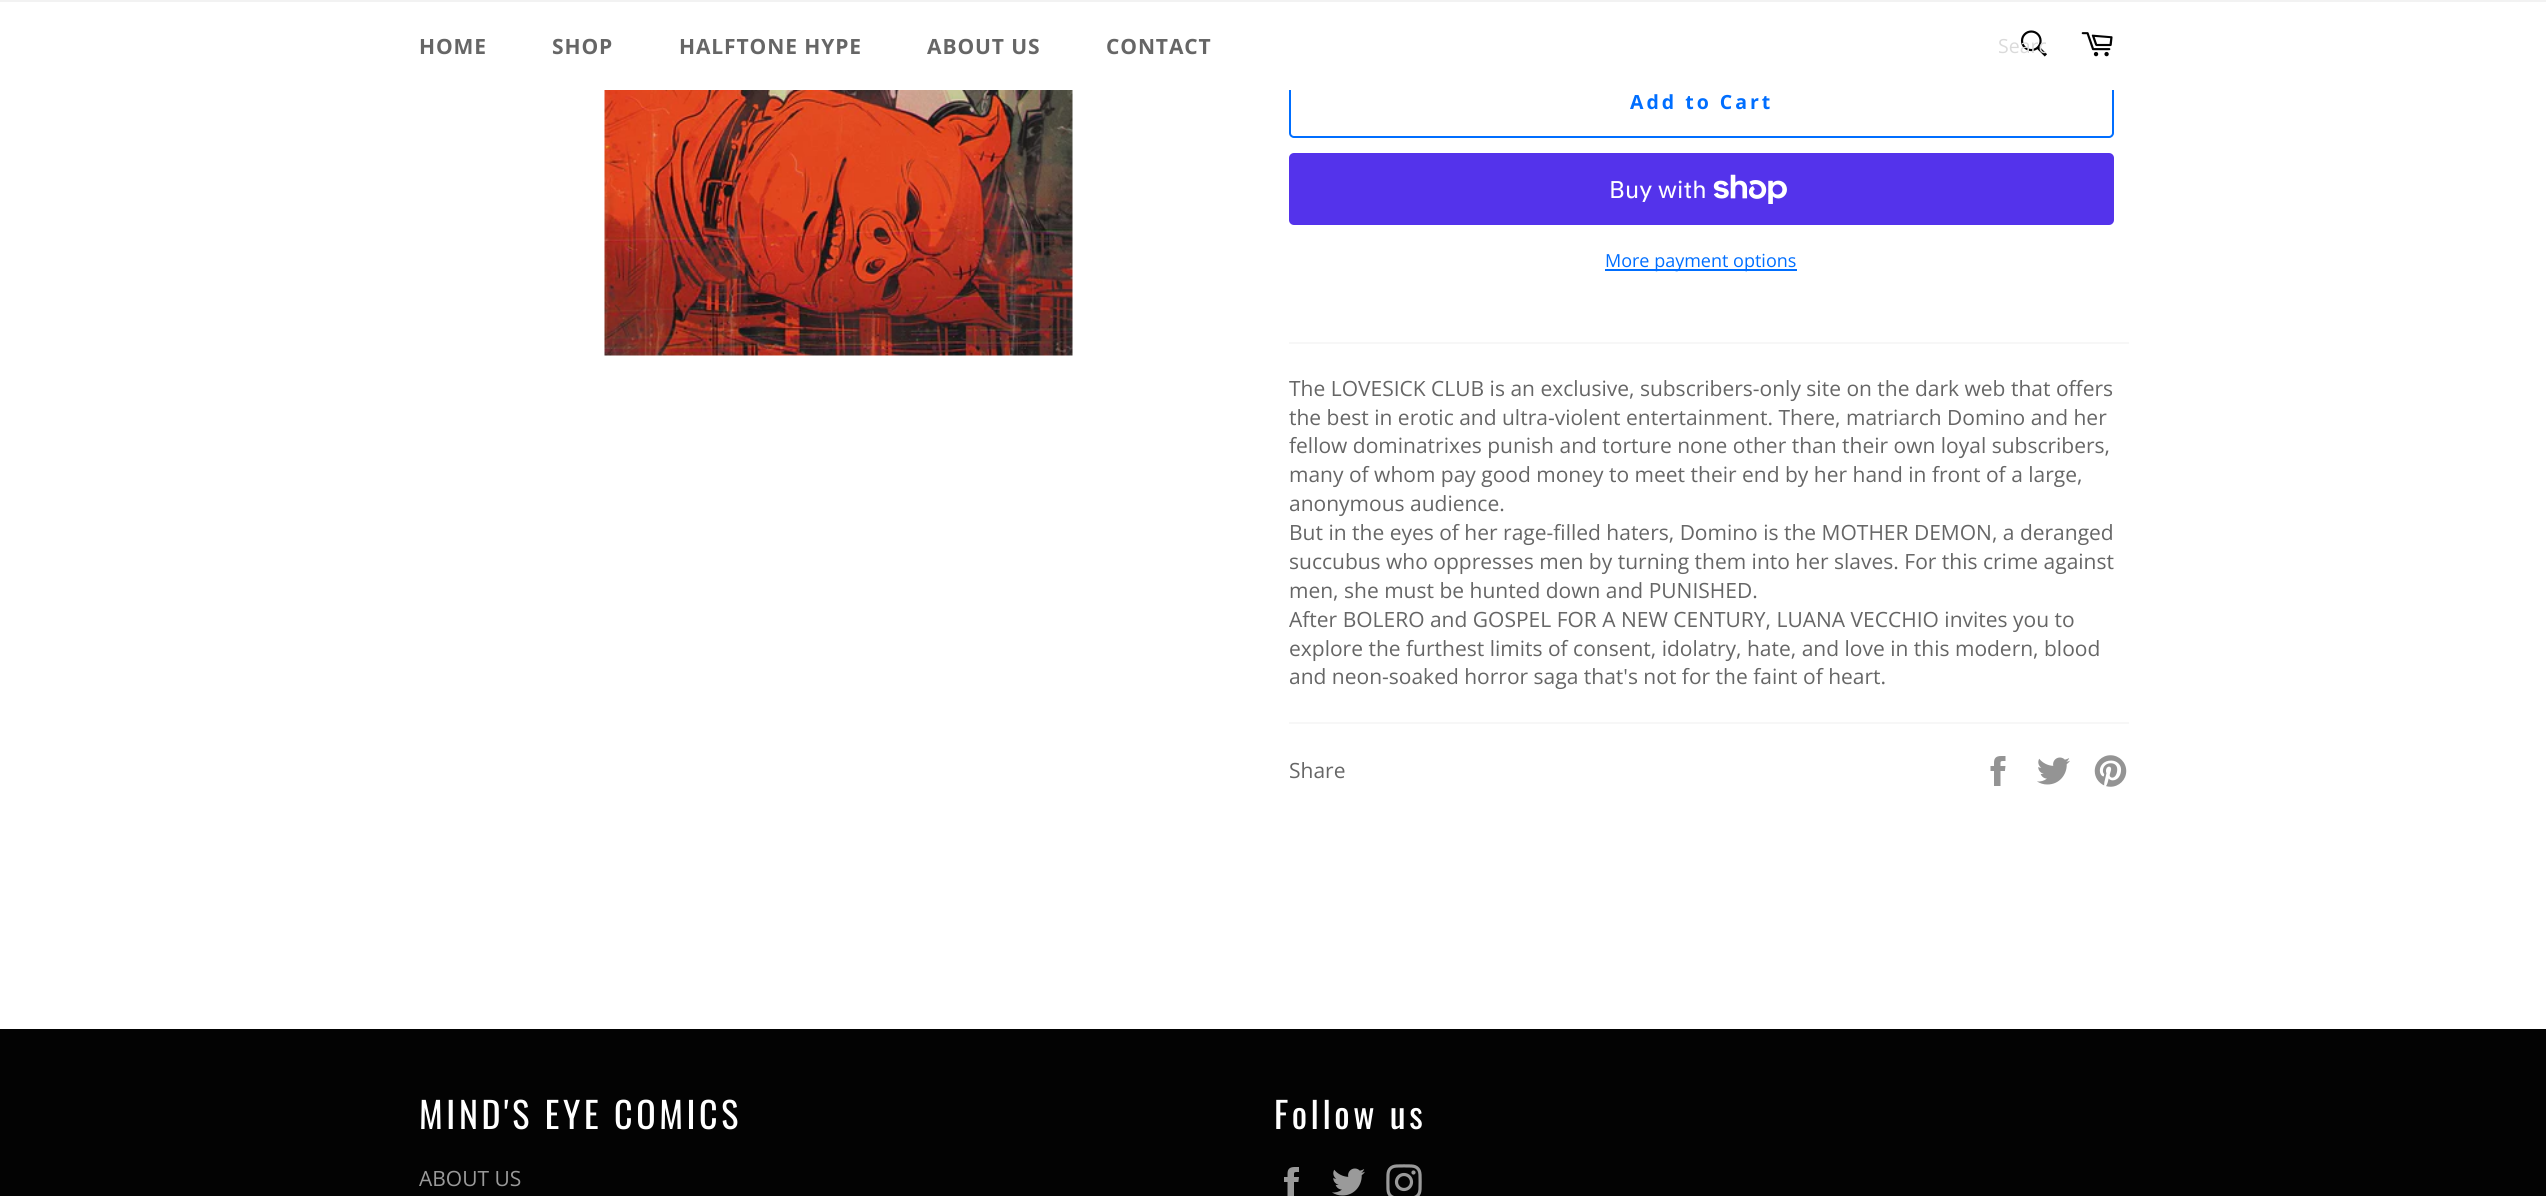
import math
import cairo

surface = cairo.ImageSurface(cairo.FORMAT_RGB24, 2546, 1196)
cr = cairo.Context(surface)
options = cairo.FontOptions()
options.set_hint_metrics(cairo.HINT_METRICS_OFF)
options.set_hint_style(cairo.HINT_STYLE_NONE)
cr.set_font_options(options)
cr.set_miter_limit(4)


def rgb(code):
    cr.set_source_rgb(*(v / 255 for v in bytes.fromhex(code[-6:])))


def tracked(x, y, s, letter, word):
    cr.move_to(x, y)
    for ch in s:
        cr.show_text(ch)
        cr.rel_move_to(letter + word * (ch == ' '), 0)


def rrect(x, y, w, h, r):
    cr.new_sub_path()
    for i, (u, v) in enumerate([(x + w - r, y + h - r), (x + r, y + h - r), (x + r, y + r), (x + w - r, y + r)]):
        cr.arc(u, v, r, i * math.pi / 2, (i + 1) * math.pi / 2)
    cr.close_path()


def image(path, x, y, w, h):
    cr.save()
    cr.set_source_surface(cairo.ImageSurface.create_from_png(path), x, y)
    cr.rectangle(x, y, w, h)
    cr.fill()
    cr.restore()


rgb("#ffffff")
cr.paint()
rrect(1290, 67, 823, 70, 4)
rgb("#006eff")
cr.stroke()
rgb("#ffffff")
cr.rectangle(1289, 66, 825, 24)
cr.fill()
rgb("#f2f2f2")
cr.rectangle(0, 0, 2546, 2)
cr.fill()
image("img/1.png", 2020, 30, 27, 27)
image("img/2.png", 2081, 32, 32, 25)
image("img/3.png", 604, 90, 469, 266)
rgb("#5433eb")
rrect(1289, 153, 825, 72, 5)
cr.fill()
image("img/4.png", 1713, 174, 74, 30)
for x, y, w, h, color in [
    (1605, 269, 192, 2, "#006eff"),
    (1289, 342, 840, 2, "#f7f7f7"),
    (1289, 722, 840, 2, "#f7f7f7"),
]:
    rgb(color)
    cr.rectangle(x, y, w, h)
    cr.fill()
image("img/5.png", 1990, 756, 16, 30)
image("img/6.png", 2037, 757, 33, 28)
image("img/7.png", 2094, 755, 33, 32)
rgb("#030303")
cr.rectangle(0, 1029, 2546, 167)
cr.fill()
image("img/8.png", 1284, 1167, 15, 29)
image("img/9.png", 1332, 1168, 33, 28)
image("img/10.png", 1386, 1164, 36, 32)
cr.select_font_face("Open Sans", cairo.FONT_SLANT_NORMAL, cairo.FONT_WEIGHT_BOLD)
cr.set_font_size(21)
rgb("#666666")
for x, y, s in [
    (419, 54, "HOME"),
    (552, 54, "SHOP"),
    (679, 54, "HALFTONE HYPE"),
    (927, 54, "ABOUT US"),
    (1106, 54, "CONTACT"),
]:
    tracked(x, y, s, 0.9, 0)
cr.save()
cr.rectangle(1998, 33, 48, 27)
cr.clip()
cr.select_font_face("Open Sans")
cr.set_font_size(19.5)
rgb("#dadada")
cr.move_to(1998, 53)
cr.show_text("Searc")
cr.restore()
cr.set_font_size(19.5)
rgb("#006eff")
tracked(1630, 109, "Add to Cart", 3, 0)
cr.select_font_face("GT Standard")
cr.set_font_size(24)
rgb("#ffffff")
cr.move_to(1609, 198)
cr.show_text("Buy with")
cr.select_font_face("Open Sans")
cr.set_font_size(18)
rgb("#006eff")
cr.move_to(1605, 267)
cr.show_text("More payment options")
cr.set_font_size(21)
rgb("#666666")
for x, y, s in [
    (1289, 396, "The LOVESICK CLUB is an exclusive, subscribers-only site on the dark web that offers"),
    (1289, 425, "the best in erotic and ultra-violent entertainment. There, matriarch Domino and her"),
    (1289, 453, "fellow dominatrixes punish and torture none other than their own loyal subscribers,"),
    (1289, 482, "many of whom pay good money to meet their end by her hand in front of a large,"),
    (1289, 511, "anonymous audience."),
    (1289, 540, "But in the eyes of her rage-filled haters, Domino is the MOTHER DEMON, a deranged"),
    (1289, 569, "succubus who oppresses men by turning them into her slaves. For this crime against"),
    (1289, 598, "men, she must be hunted down and PUNISHED."),
    (1289, 627, "After BOLERO and GOSPEL FOR A NEW CENTURY, LUANA VECCHIO invites you to"),
    (1289, 656, "explore the furthest limits of consent, idolatry, hate, and love in this modern, blood"),
    (1289, 684, "and neon-soaked horror saga that's not for the faint of heart."),
    (1289, 778, "Share"),
]:
    cr.move_to(x, y)
    cr.show_text(s)
cr.select_font_face("Oswald")
cr.set_font_size(36)
rgb("#ffffff")
tracked(419, 1129, "MIND'S EYE COMICS", 3.6, 0)
cr.select_font_face("Open Sans")
cr.set_font_size(21)
rgb("#9a9a9a")
cr.move_to(419, 1186)
cr.show_text("ABOUT US")
cr.select_font_face("Oswald")
cr.set_font_size(36)
rgb("#ffffff")
tracked(1274, 1129, "Follow us", 3.6, 0)
surface.write_to_png("page.png")
